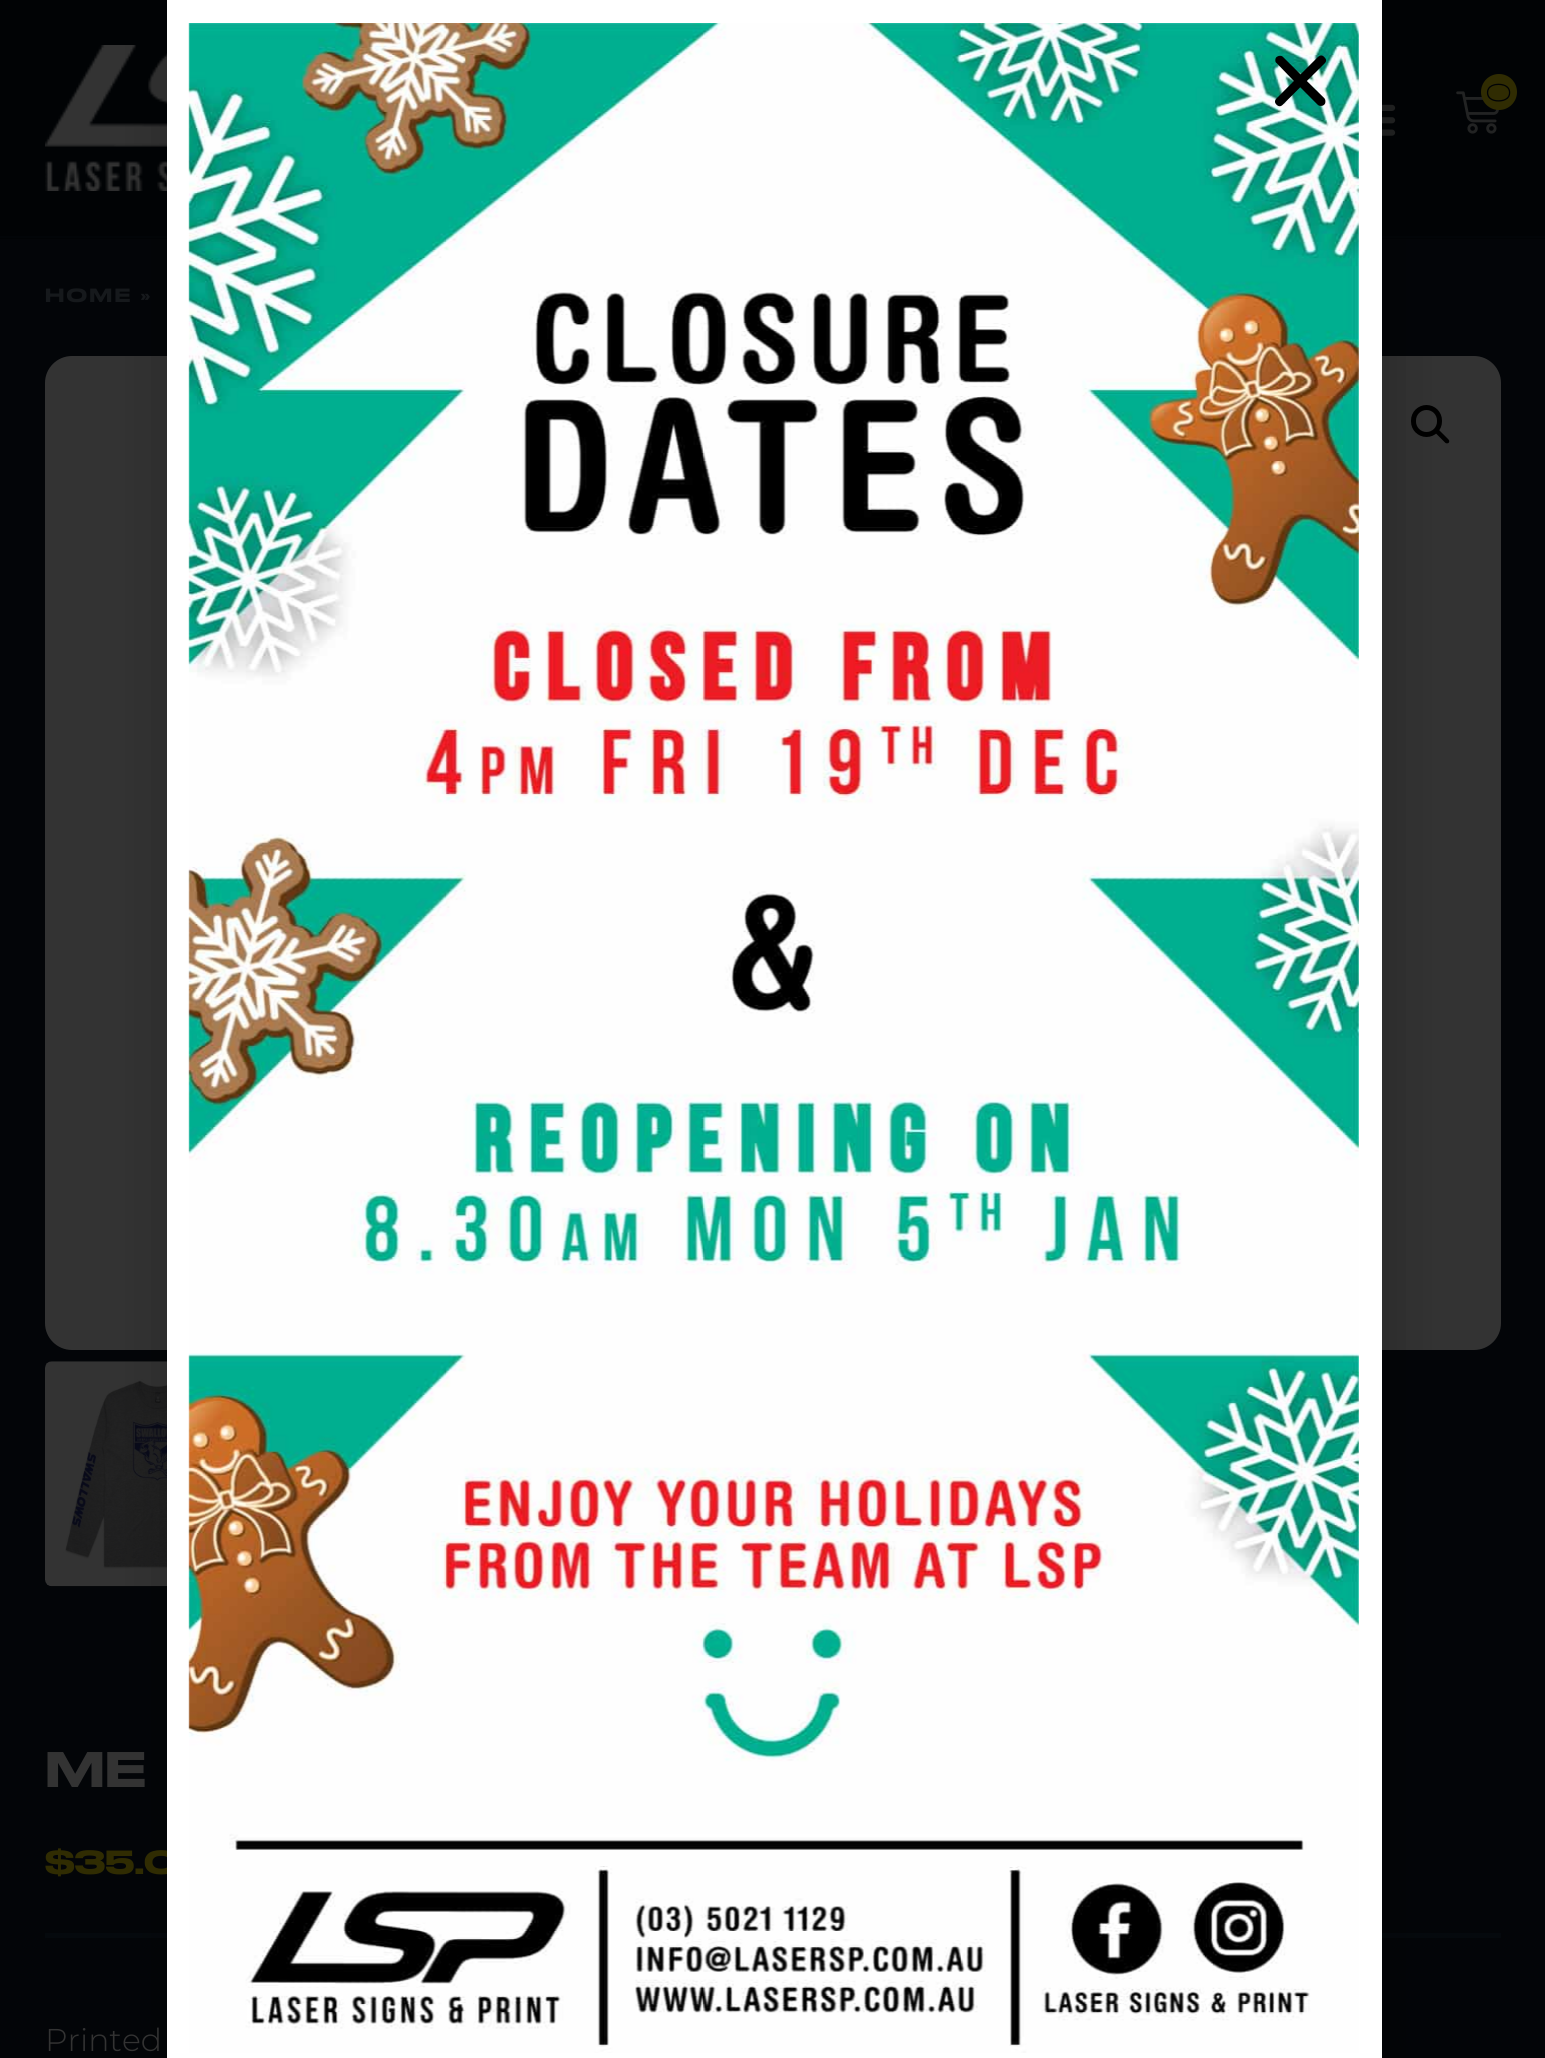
import math
import cairo

surface = cairo.ImageSurface(cairo.FORMAT_RGB24, 1545, 2058)
cr = cairo.Context(surface)
options = cairo.FontOptions()
options.set_hint_metrics(cairo.HINT_METRICS_OFF)
options.set_hint_style(cairo.HINT_STYLE_NONE)
cr.set_font_options(options)
cr.set_miter_limit(4)


def rgb(code):
    cr.set_source_rgb(*(v / 255 for v in bytes.fromhex(code[-6:])))


def tracked(x, y, s, letter, word):
    cr.move_to(x, y)
    for ch in s:
        cr.show_text(ch)
        cr.rel_move_to(letter + word * (ch == ' '), 0)


def rrect(x, y, w, h, r):
    cr.new_sub_path()
    for i, (u, v) in enumerate([(x + w - r, y + h - r), (x + r, y + h - r), (x + r, y + r), (x + w - r, y + r)]):
        cr.arc(u, v, r, i * math.pi / 2, (i + 1) * math.pi / 2)
    cr.close_path()


def soft_shadow(x, y, w, h, r, blur, alpha):
    cr.push_group_with_content(cairo.CONTENT_ALPHA)
    cr.set_operator(cairo.OPERATOR_SOURCE)
    for i in range(15, -16, -2):
        e = blur * i / 6
        if min(w, h) + 2 * e > 0:
            cr.set_source_rgba(0, 0, 0, alpha * math.erfc((i - 1) / 8.5) / 2)
            rrect(x - e, y - e, w + 2 * e, h + 2 * e, max(0, min(r + e + blur * .6, min(w, h) / 2 + e)))
            cr.fill()
    cr.mask(cr.pop_group())


def image(path, x, y, w, h):
    cr.save()
    cr.set_source_surface(cairo.ImageSurface.create_from_png(path), x, y)
    cr.rectangle(x, y, w, h)
    cr.fill()
    cr.restore()


rgb("#010305")
cr.paint()
rgb("#020508")
cr.rectangle(0, 236, 1545, 2)
cr.fill()
image("img/3.png", 45, 45, 122, 146)
image("img/4.png", 1456, 91, 43, 43)
image("img/5.png", 1382, 104, 14, 32)
rgb("#030508")
cr.rectangle(0, 239, 1545, 1819)
cr.fill()
rgb("#333333")
rrect(45, 356, 1456, 994, 27)
cr.fill()
rrect(1413.5, 407.5, 26, 27, 13)
rgb("#000000")
cr.set_line_width(5)
cr.stroke()
cr.new_path()
cr.move_to(1436, 430)
cr.curve_to(1437, 429.5, 1438, 429.5, 1439, 430)
cr.line_to(1448.5, 439.5)
cr.curve_to(1449.5, 440.5, 1449.5, 442, 1448.5, 443)
cr.curve_to(1447.5, 443.5, 1446.5, 443.5, 1445.5, 443)
cr.line_to(1436, 433.5)
cr.curve_to(1435, 432.5, 1435, 431, 1436, 430)
cr.close_path()
cr.fill()
image("img/6.png", 45, 1361, 122, 226)
rgb("#05090d")
cr.rectangle(45, 1933, 1456, 5)
cr.fill()
rgb("#000000")
soft_shadow(164, 11, 1229, 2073, 0, 26, 0.2)
rgb("#302c02")
cr.arc(1499, 92, 18, 0, 2 * math.pi)
cr.fill()
cr.select_font_face("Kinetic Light")
cr.set_font_size(22)
rgb("#010305")
cr.move_to(1486, 101)
cr.show_text("0")
cr.select_font_face("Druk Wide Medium")
cr.set_font_size(18)
rgb("#16191c")
tracked(45, 302, "HOME »", 2.25, 0)
cr.set_font_size(47)
rgb("#333333")
cr.move_to(45, 1787)
cr.show_text("ME")
cr.set_font_size(31.5)
rgb("#302c02")
cr.move_to(45, 1874)
cr.show_text("$35.0")
rgb("#ffffff")
cr.rectangle(167, 0, 1215, 2058)
cr.fill()
image("img/1.png", 188, 23, 1171, 2030)
image("img/2.png", 1275, 55, 52, 52)
cr.select_font_face("Montserrat Light")
rgb("#333333")
cr.move_to(45, 2051)
cr.show_text("Printed")
surface.write_to_png("page.png")
